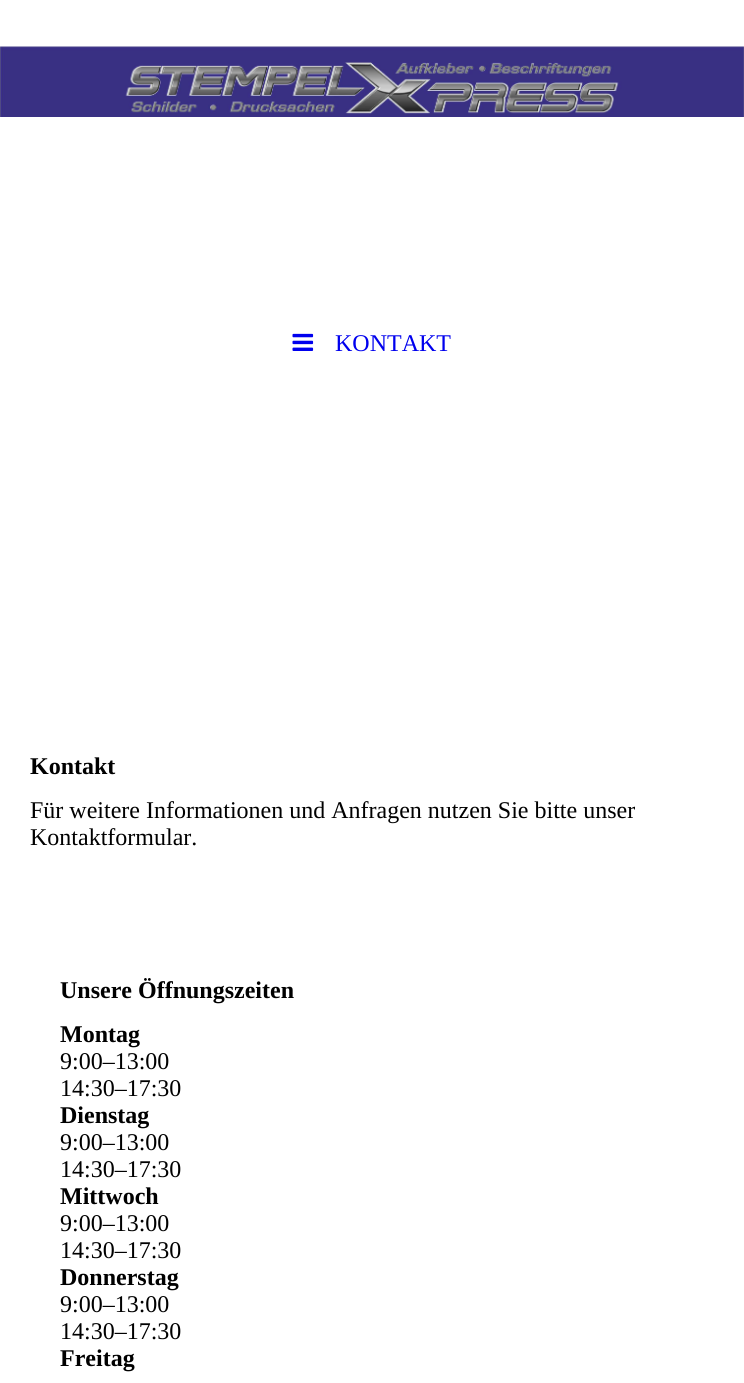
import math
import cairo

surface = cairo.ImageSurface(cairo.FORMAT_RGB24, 744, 1383)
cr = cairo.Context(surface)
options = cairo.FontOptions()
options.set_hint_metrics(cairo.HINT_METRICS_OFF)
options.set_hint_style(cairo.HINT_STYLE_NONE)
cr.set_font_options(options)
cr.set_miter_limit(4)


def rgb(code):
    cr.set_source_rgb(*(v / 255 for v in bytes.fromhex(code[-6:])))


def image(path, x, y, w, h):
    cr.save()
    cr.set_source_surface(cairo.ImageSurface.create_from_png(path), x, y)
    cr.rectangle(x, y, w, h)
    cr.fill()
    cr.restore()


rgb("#ffffff")
cr.paint()
image("img/1.png", 0, 46, 744, 71)
image("img/2.png", 292, 333, 22, 18)
cr.select_font_face("Liberation Serif")
cr.set_font_size(24)
rgb("#0000ee")
cr.move_to(335, 351)
cr.show_text("KONTAKT")
cr.select_font_face("Liberation Serif", cairo.FONT_SLANT_NORMAL, cairo.FONT_WEIGHT_BOLD)
rgb("#000000")
cr.move_to(30, 774)
cr.show_text("Kontakt")
cr.select_font_face("Liberation Serif")
cr.move_to(30, 818)
cr.show_text("Für weitere Informationen und Anfragen nutzen Sie bitte unser")
cr.move_to(30, 845)
cr.show_text("Kontaktformular.")
cr.select_font_face("Liberation Serif", cairo.FONT_SLANT_NORMAL, cairo.FONT_WEIGHT_BOLD)
cr.move_to(60, 998)
cr.show_text("Unsere Öffnungszeiten")
cr.move_to(60, 1042)
cr.show_text("Montag")
cr.select_font_face("Liberation Serif")
cr.move_to(60, 1069)
cr.show_text("9:00–13:00")
cr.move_to(60, 1096)
cr.show_text("14:30–17:30")
cr.select_font_face("Liberation Serif", cairo.FONT_SLANT_NORMAL, cairo.FONT_WEIGHT_BOLD)
cr.move_to(60, 1123)
cr.show_text("Dienstag")
cr.select_font_face("Liberation Serif")
cr.move_to(60, 1150)
cr.show_text("9:00–13:00")
cr.move_to(60, 1177)
cr.show_text("14:30–17:30")
cr.select_font_face("Liberation Serif", cairo.FONT_SLANT_NORMAL, cairo.FONT_WEIGHT_BOLD)
cr.move_to(60, 1204)
cr.show_text("Mittwoch")
cr.select_font_face("Liberation Serif")
cr.move_to(60, 1231)
cr.show_text("9:00–13:00")
cr.move_to(60, 1258)
cr.show_text("14:30–17:30")
cr.select_font_face("Liberation Serif", cairo.FONT_SLANT_NORMAL, cairo.FONT_WEIGHT_BOLD)
cr.move_to(60, 1285)
cr.show_text("Donnerstag")
cr.select_font_face("Liberation Serif")
cr.move_to(60, 1312)
cr.show_text("9:00–13:00")
cr.move_to(60, 1339)
cr.show_text("14:30–17:30")
cr.select_font_face("Liberation Serif", cairo.FONT_SLANT_NORMAL, cairo.FONT_WEIGHT_BOLD)
cr.move_to(60, 1366)
cr.show_text("Freitag")
surface.write_to_png("page.png")
